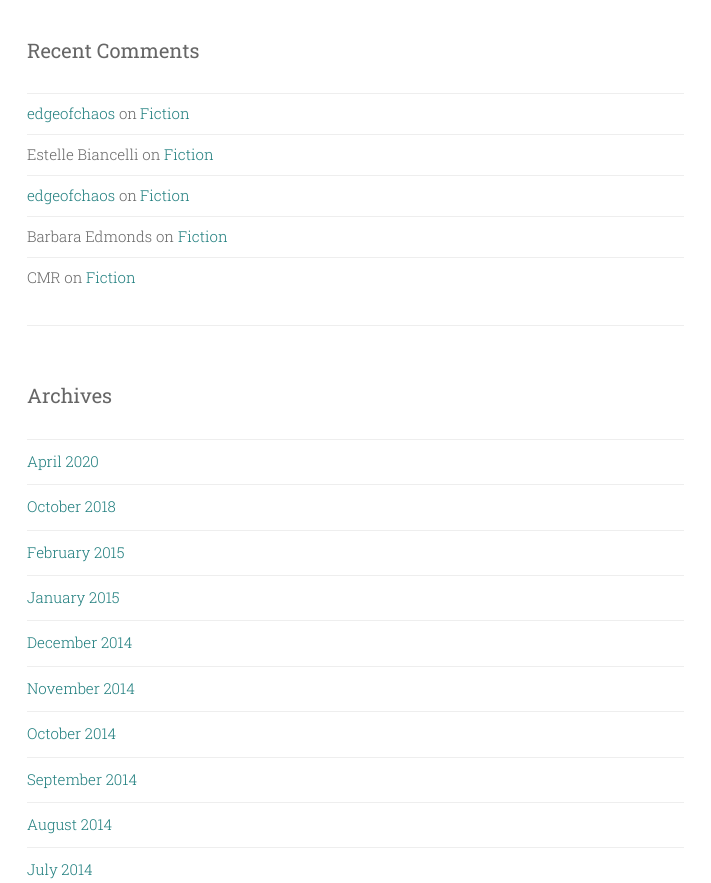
import math
import cairo

surface = cairo.ImageSurface(cairo.FORMAT_RGB24, 711, 883)
cr = cairo.Context(surface)
options = cairo.FontOptions()
options.set_hint_metrics(cairo.HINT_METRICS_OFF)
options.set_hint_style(cairo.HINT_STYLE_NONE)
cr.set_font_options(options)
cr.set_miter_limit(4)


def rgb(code):
    cr.set_source_rgb(*(v / 255 for v in bytes.fromhex(code[-6:])))


rgb("#ffffff")
cr.paint()
for x, y, w, h, color in [
    (27, 325, 657, 1, "#eeeeee"),
    (27, 93, 657, 1, "#eeeeee"),
    (27, 134, 657, 1, "#eeeeee"),
    (27, 175, 657, 1, "#eeeeee"),
    (27, 216, 657, 1, "#eeeeee"),
    (27, 257, 657, 1, "#eeeeee"),
    (27, 439, 657, 1, "#eeeeee"),
    (27, 484, 657, 1, "#eeeeee"),
    (27, 530, 657, 1, "#eeeeee"),
    (27, 575, 657, 1, "#eeeeee"),
    (27, 620, 657, 1, "#eeeeee"),
    (27, 666, 657, 1, "#eeeeee"),
    (27, 711, 657, 1, "#eeeeee"),
    (27, 757, 657, 1, "#eeeeee"),
    (27, 802, 657, 1, "#eeeeee"),
    (27, 847, 657, 1, "#eeeeee"),
]:
    rgb(color)
    cr.rectangle(x, y, w, h)
    cr.fill()
cr.select_font_face("Roboto Slab")
cr.set_font_size(20)
rgb("#666666")
cr.move_to(27, 58)
cr.show_text("Recent Comments")
cr.select_font_face("Roboto Slab Light")
cr.set_font_size(15)
rgb("#1c7c7c")
cr.move_to(27, 119)
cr.show_text("edgeofchaos")
rgb("#666666")
cr.move_to(119, 119)
cr.show_text("on")
rgb("#1c7c7c")
cr.move_to(140, 119)
cr.show_text("Fiction")
rgb("#666666")
cr.move_to(27, 160)
cr.show_text("Estelle Biancelli on")
rgb("#1c7c7c")
cr.move_to(164, 160)
cr.show_text("Fiction")
cr.move_to(27, 201)
cr.show_text("edgeofchaos")
rgb("#666666")
cr.move_to(119, 201)
cr.show_text("on")
rgb("#1c7c7c")
cr.move_to(140, 201)
cr.show_text("Fiction")
rgb("#666666")
cr.move_to(27, 242)
cr.show_text("Barbara Edmonds on")
rgb("#1c7c7c")
cr.move_to(178, 242)
cr.show_text("Fiction")
rgb("#666666")
cr.move_to(27, 283)
cr.show_text("CMR on")
rgb("#1c7c7c")
cr.move_to(86, 283)
cr.show_text("Fiction")
cr.select_font_face("Roboto Slab")
cr.set_font_size(20)
rgb("#666666")
cr.move_to(27, 403)
cr.show_text("Archives")
cr.select_font_face("Roboto Slab Light")
cr.set_font_size(15)
rgb("#1c7c7c")
for x, y, s in [
    (27, 467, "April 2020"),
    (27, 512, "October 2018"),
    (27, 558, "February 2015"),
    (27, 603, "January 2015"),
    (27, 648, "December 2014"),
    (27, 694, "November 2014"),
    (27, 739, "October 2014"),
    (27, 785, "September 2014"),
    (27, 830, "August 2014"),
    (27, 875, "July 2014"),
]:
    cr.move_to(x, y)
    cr.show_text(s)
surface.write_to_png("page.png")
